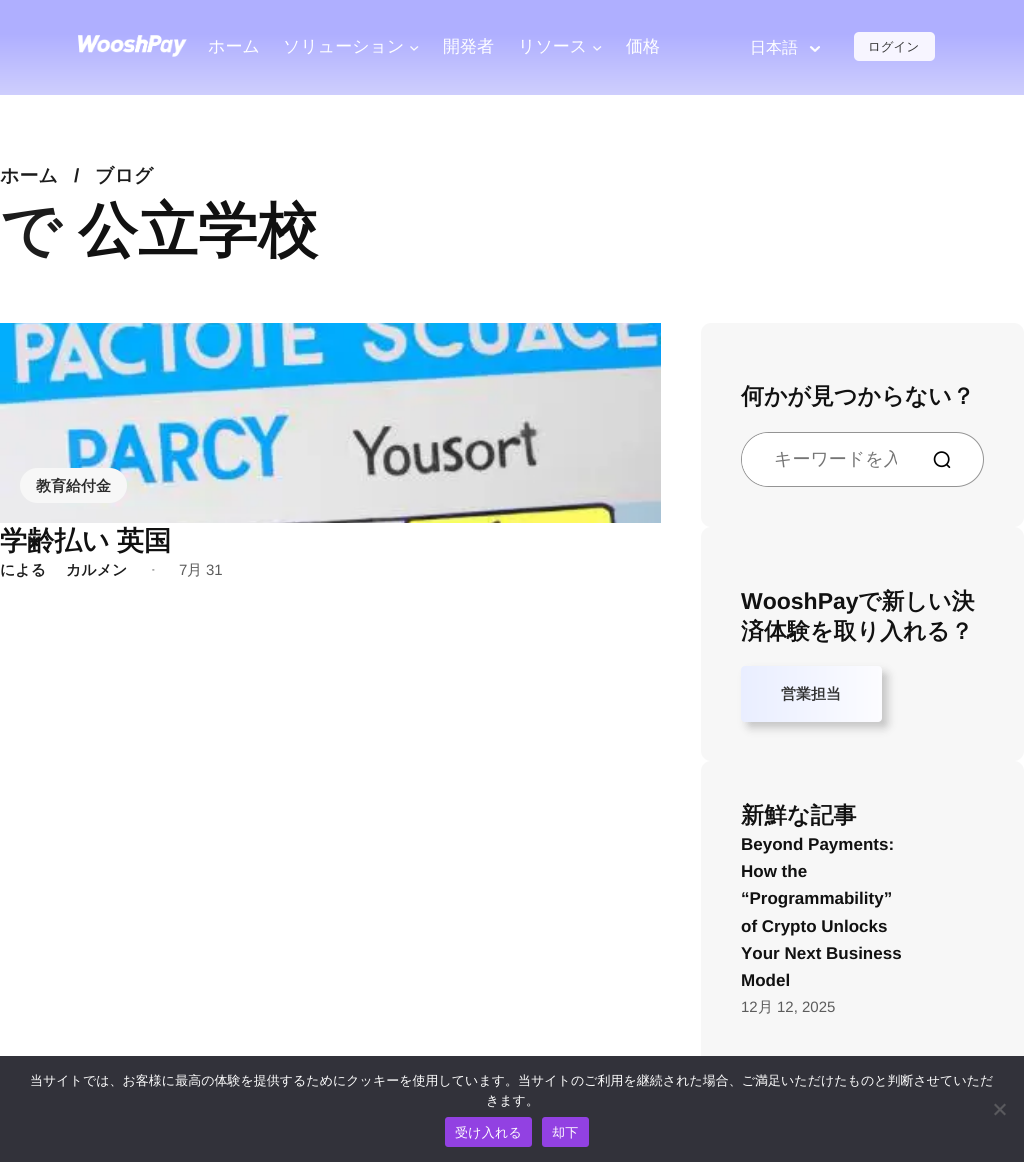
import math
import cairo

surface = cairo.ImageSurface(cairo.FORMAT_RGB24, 1024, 1162)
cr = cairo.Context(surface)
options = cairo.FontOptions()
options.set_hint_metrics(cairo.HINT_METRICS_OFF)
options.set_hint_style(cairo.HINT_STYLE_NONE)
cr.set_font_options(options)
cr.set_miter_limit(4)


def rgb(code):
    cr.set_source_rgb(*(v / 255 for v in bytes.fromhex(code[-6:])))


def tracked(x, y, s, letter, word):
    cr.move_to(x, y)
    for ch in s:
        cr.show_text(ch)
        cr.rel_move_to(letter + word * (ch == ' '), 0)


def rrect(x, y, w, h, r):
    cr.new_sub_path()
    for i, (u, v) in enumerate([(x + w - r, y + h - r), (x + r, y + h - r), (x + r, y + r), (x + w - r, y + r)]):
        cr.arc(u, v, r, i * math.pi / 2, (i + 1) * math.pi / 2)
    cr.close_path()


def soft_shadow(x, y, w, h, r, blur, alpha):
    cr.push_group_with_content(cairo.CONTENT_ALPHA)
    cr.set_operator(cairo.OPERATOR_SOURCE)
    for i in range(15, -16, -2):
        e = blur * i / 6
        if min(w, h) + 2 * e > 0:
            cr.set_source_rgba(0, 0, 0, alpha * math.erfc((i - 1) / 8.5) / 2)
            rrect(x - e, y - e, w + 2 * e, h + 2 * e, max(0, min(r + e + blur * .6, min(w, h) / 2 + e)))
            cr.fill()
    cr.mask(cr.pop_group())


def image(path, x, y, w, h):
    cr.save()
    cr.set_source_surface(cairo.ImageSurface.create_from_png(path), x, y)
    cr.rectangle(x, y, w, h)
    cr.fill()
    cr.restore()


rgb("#ffffff")
cr.paint()
gradient = cairo.LinearGradient(512, 0, 512, 95)
gradient.add_color_stop_rgba(0.36, 0.686, 0.686, 1, 1)
gradient.add_color_stop_rgba(1, 0.808, 0.808, 0.992, 1)
cr.set_source(gradient)
cr.rectangle(0, 0, 1024, 95)
cr.fill()
image("img/1.png", 78, 35, 109, 22)
cr.new_path()
cr.move_to(410.5, 46.5)
cr.line_to(414, 50)
cr.line_to(418, 46.5)
rgb("#fcfcfc")
cr.set_line_width(1.3)
cr.stroke()
cr.new_path()
cr.move_to(593.5, 46.5)
cr.line_to(597, 50)
cr.line_to(601, 46.5)
cr.stroke()
image("img/2.png", 809, 46, 11, 6)
rgb("#f7f5ff")
rrect(854, 32, 81, 29, 5)
cr.fill()
image("img/3.png", 0, 323, 661, 200)
rgb("#f7f7f7")
rrect(20, 468, 107, 35, 17.5)
cr.fill()
rrect(701, 323, 323, 204, 10)
cr.fill()
rgb("#ffffff")
rrect(741.5, 432.5, 242, 54, 27)
cr.fill_preserve()
rgb("#949494")
cr.set_line_width(1)
cr.stroke()
rgb("#ffffff")
cr.new_path()
cr.move_to(768.5, 433)
cr.line_to(917, 433)
cr.line_to(917, 486)
cr.line_to(768.5, 486)
cr.curve_to(754, 486, 742, 474, 742, 459.5)
cr.curve_to(742, 445, 754, 433, 768.5, 433)
cr.close_path()
cr.fill()
image("img/4.png", 933, 451, 18, 18)
rgb("#f7f7f7")
rrect(701, 527, 323, 234, 10)
cr.fill()
rgb("#000000")
soft_shadow(747, 672, 141, 56, 4, 4.5, 0.2)
gradient = cairo.LinearGradient(741, 694, 882, 694)
gradient.add_color_stop_rgba(0, 0.914, 0.933, 1, 1)
gradient.add_color_stop_rgba(1, 0.988, 0.988, 1, 1)
cr.set_source(gradient)
rrect(741, 666, 141, 56, 4)
cr.fill()
rgb("#f7f7f7")
rrect(701, 761, 323, 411, 10)
cr.fill()
rgb("#32323a")
cr.rectangle(0, 1056, 1024, 106)
cr.fill()
rgb("#59595d")
cr.new_path()
cr.move_to(1004.5, 1103.5)
cr.line_to(1006, 1105)
cr.line_to(995.5, 1115.5)
cr.line_to(994, 1114)
cr.close_path()
cr.fill()
cr.new_path()
cr.move_to(994, 1105)
cr.line_to(995.5, 1103.5)
cr.line_to(1006, 1114)
cr.line_to(1004.5, 1115.5)
cr.close_path()
cr.fill()
rgb("#9241e2")
rrect(445, 1117, 87, 30, 3)
cr.fill()
rrect(542, 1117, 47, 30, 3)
cr.fill()
cr.select_font_face("WenQuanYi Zen Hei Medium")
cr.set_font_size(17)
rgb("#ffffff")
for x, y, s in [
    (208, 52, "ホーム"),
    (283, 52, "ソリューション"),
    (443, 52, "開発者"),
    (518, 52, "リソース"),
    (626, 52, "価格"),
]:
    cr.move_to(x, y)
    cr.show_text(s)
cr.set_font_size(16)
cr.move_to(750, 53)
cr.show_text("日本語")
cr.set_font_size(12.5)
rgb("#333333")
cr.move_to(868, 51)
cr.show_text("ログイン")
cr.select_font_face("WenQuanYi Zen Hei", cairo.FONT_SLANT_NORMAL, cairo.FONT_WEIGHT_BOLD)
cr.set_font_size(19)
rgb("#1c1c1c")
cr.move_to(0, 182)
cr.show_text("ホーム")
cr.select_font_face("Liberation Sans", cairo.FONT_SLANT_NORMAL, cairo.FONT_WEIGHT_BOLD)
cr.move_to(74, 182)
cr.show_text("/")
cr.select_font_face("WenQuanYi Zen Hei", cairo.FONT_SLANT_NORMAL, cairo.FONT_WEIGHT_BOLD)
cr.move_to(95, 182)
cr.show_text("ブログ")
cr.set_font_size(60)
cr.move_to(0, 251)
cr.show_text("で")
rgb("#111111")
cr.move_to(78, 251)
cr.show_text("公立学校")
cr.set_font_size(15)
rgb("#2c2c2c")
cr.move_to(36, 491)
cr.show_text("教育給付金")
cr.set_font_size(27.25)
rgb("#111111")
tracked(0, 550, "学齢払い 英国", 0, -1)
cr.set_font_size(15)
rgb("#1c1c1c")
cr.move_to(0, 575)
cr.show_text("による")
cr.move_to(66, 575)
cr.show_text("カルメン")
cr.select_font_face("Liberation Sans", cairo.FONT_SLANT_NORMAL, cairo.FONT_WEIGHT_BOLD)
cr.set_font_size(8)
rgb("#5c5c5c")
cr.move_to(152, 572)
cr.show_text("-")
cr.select_font_face("Liberation Sans")
cr.set_font_size(15)
cr.move_to(179, 575)
cr.show_text("7")
cr.select_font_face("WenQuanYi Zen Hei Medium")
cr.move_to(187, 575)
cr.show_text("月")
cr.select_font_face("Liberation Sans")
cr.move_to(206, 575)
cr.show_text("31")
cr.select_font_face("WenQuanYi Zen Hei", cairo.FONT_SLANT_NORMAL, cairo.FONT_WEIGHT_BOLD)
cr.set_font_size(23)
rgb("#111111")
cr.move_to(741, 404)
cr.show_text("何かが見つからない？")
cr.save()
cr.rectangle(774, 447, 123, 24)
cr.clip()
cr.select_font_face("WenQuanYi Zen Hei Medium")
cr.set_font_size(18)
rgb("#757575")
cr.move_to(774, 465)
cr.show_text("キーワードを入")
cr.restore()
cr.select_font_face("Liberation Sans", cairo.FONT_SLANT_NORMAL, cairo.FONT_WEIGHT_BOLD)
cr.move_to(741, 609)
cr.show_text("WooshPay")
cr.select_font_face("WenQuanYi Zen Hei", cairo.FONT_SLANT_NORMAL, cairo.FONT_WEIGHT_BOLD)
cr.move_to(858, 609)
cr.show_text("で新しい決")
cr.move_to(741, 639)
cr.show_text("済体験を取り入れる？")
cr.set_font_size(15)
rgb("#333333")
cr.move_to(781, 699)
cr.show_text("営業担当")
cr.set_font_size(23)
rgb("#111111")
cr.move_to(741, 823)
cr.show_text("新鮮な記事")
cr.select_font_face("Liberation Sans", cairo.FONT_SLANT_NORMAL, cairo.FONT_WEIGHT_BOLD)
cr.set_font_size(17)
for x, y, s in [
    (741, 850, "Beyond Payments:"),
    (741, 877, "How the"),
    (741, 904, "“Programmability”"),
    (741, 932, "of Crypto Unlocks"),
    (741, 959, "Your Next Business"),
    (741, 986, "Model"),
]:
    cr.move_to(x, y)
    cr.show_text(s)
cr.select_font_face("Liberation Sans")
cr.set_font_size(15)
rgb("#5c5c5c")
cr.move_to(741, 1012)
cr.show_text("12")
cr.select_font_face("WenQuanYi Zen Hei Medium")
cr.move_to(758, 1012)
cr.show_text("月")
cr.select_font_face("Liberation Sans")
cr.move_to(777, 1012)
cr.show_text("12, 2025")
cr.select_font_face("WenQuanYi Zen Hei Medium")
cr.set_font_size(13)
rgb("#ffffff")
cr.move_to(30, 1085)
cr.show_text("当サイトでは、お客様に最高の体験を提供するためにクッキーを使用しています。当サイトのご利用を継続された場合、ご満足いただけたものと判断させていただ")
cr.move_to(486, 1105)
cr.show_text("きます。")
tracked(455, 1137, "受け入れる", 0.25, 0)
tracked(552, 1137, "却下", 0.25, 0)
surface.write_to_png("page.png")
